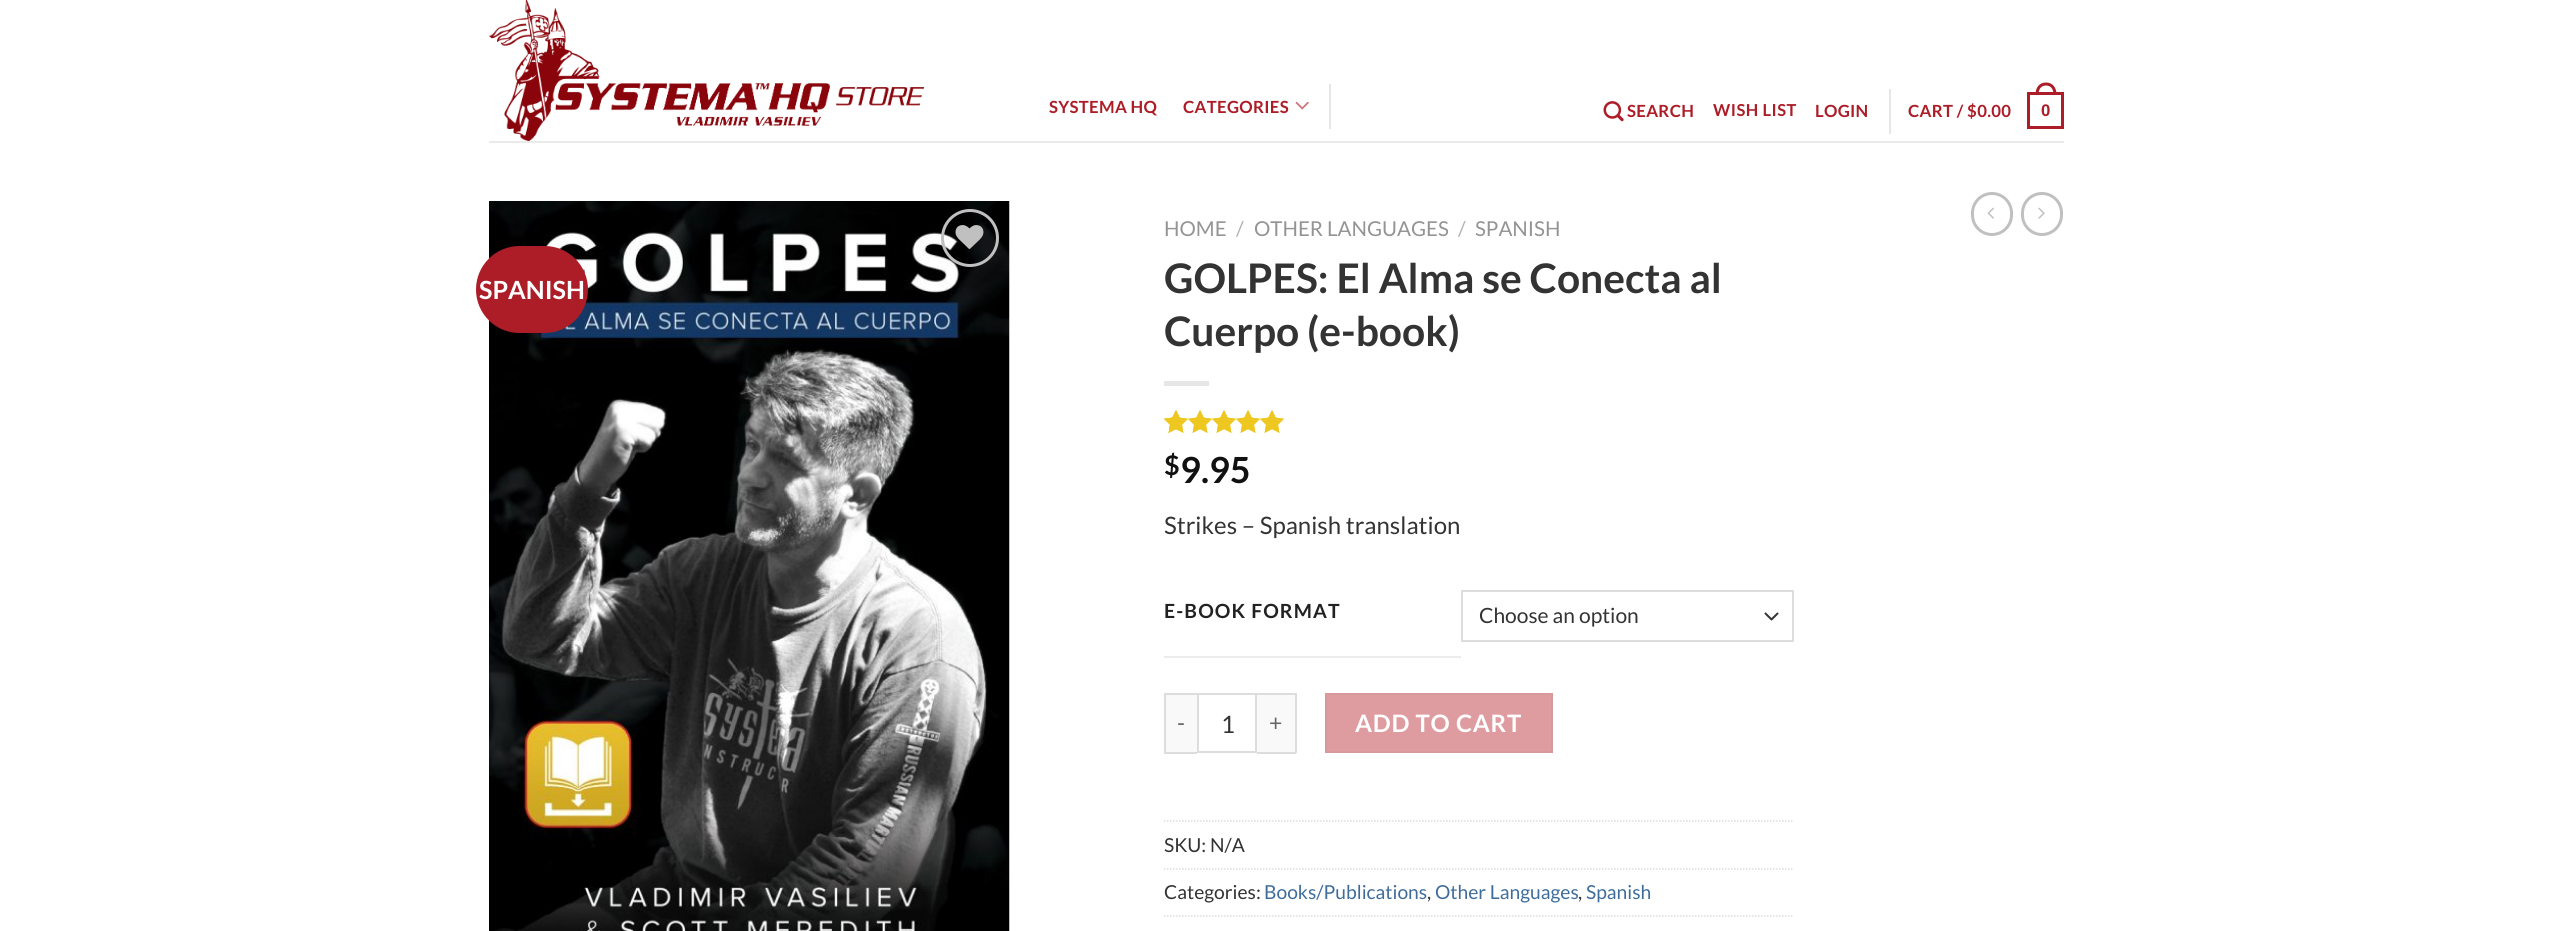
import math
import cairo

surface = cairo.ImageSurface(cairo.FORMAT_RGB24, 2552, 931)
cr = cairo.Context(surface)
options = cairo.FontOptions()
options.set_hint_metrics(cairo.HINT_METRICS_OFF)
options.set_hint_style(cairo.HINT_STYLE_NONE)
cr.set_font_options(options)
cr.set_miter_limit(4)


def rgb(code):
    cr.set_source_rgb(*(v / 255 for v in bytes.fromhex(code[-6:])))


def tracked(x, y, s, letter, word):
    cr.move_to(x, y)
    for ch in s:
        cr.show_text(ch)
        cr.rel_move_to(letter + word * (ch == ' '), 0)


def rrect(x, y, w, h, r):
    cr.new_sub_path()
    for i, (u, v) in enumerate([(x + w - r, y + h - r), (x + r, y + h - r), (x + r, y + r), (x + w - r, y + r)]):
        cr.arc(u, v, r, i * math.pi / 2, (i + 1) * math.pi / 2)
    cr.close_path()


def image(path, x, y, w, h):
    cr.save()
    cr.set_source_surface(cairo.ImageSurface.create_from_png(path), x, y)
    cr.rectangle(x, y, w, h)
    cr.fill()
    cr.restore()


rgb("#ffffff")
cr.paint()
image("img/1.png", 489, 0, 435, 141)
image("img/2.png", 1295, 101, 14, 9)
rgb("#e6e6e6")
cr.rectangle(1329, 84, 2, 45)
cr.fill()
image("img/3.png", 1603, 101, 21, 21)
cr.rectangle(1889, 89, 2, 45)
cr.fill()
cr.rectangle(2028.5, 93.5, 34, 34)
rgb("#ad1d28")
cr.set_line_width(3)
cr.stroke()
cr.set_fill_rule(cairo.FILL_RULE_EVEN_ODD)
cr.new_path()
cr.move_to(2046, 82.5)
cr.curve_to(2053, 82.5, 2056.5, 88, 2056.5, 94.5)
cr.line_to(2035.5, 94.5)
cr.curve_to(2035.5, 88, 2039, 82.5, 2046, 82.5)
cr.close_path()
cr.move_to(2046, 85.5)
cr.curve_to(2051.5, 85.5, 2053.5, 90, 2053.5, 94.5)
cr.line_to(2038.5, 94.5)
cr.curve_to(2038.5, 90, 2040.5, 85.5, 2046, 85.5)
cr.close_path()
cr.fill()
rgb("#ebebeb")
cr.rectangle(489, 141, 1575, 2)
cr.fill()
rrect(1972.5, 193.5, 39, 41, 19.5)
rgb("#c0c0c0")
cr.stroke()
image("img/4.png", 1987, 207, 7, 12)
rrect(2022.5, 193.5, 39, 41, 19.5)
cr.stroke()
image("img/5.png", 2038, 207, 7, 12)
image("img/6.png", 489, 201, 521, 730)
cr.arc(970, 238, 27.5, 0, 2 * math.pi)
cr.stroke()
image("img/7.png", 955, 225, 29, 24)
rgb("#ad1d28")
rrect(476, 246, 112, 87, 43.5)
cr.fill()
rgb("#e6e6e6")
cr.rectangle(1164, 381, 45, 5)
cr.fill()
image("img/8.png", 1164, 410, 120, 23)
image("img/9.png", 1164, 410, 120, 23)
image("img/10.png", 1164, 410, 15, 23)
rgb("#ececec")
cr.rectangle(1164, 656, 297, 2)
cr.fill()
cr.new_path()
cr.move_to(1765.5, 613.5)
cr.line_to(1771.5, 619.5)
cr.line_to(1777.5, 613.5)
rgb("#333333")
cr.set_line_width(2)
cr.set_line_cap(cairo.LINE_CAP_ROUND)
cr.set_line_join(cairo.LINE_JOIN_ROUND)
cr.stroke()
cr.rectangle(1462, 591, 331, 50)
rgb("#dddddd")
cr.set_line_cap(cairo.LINE_CAP_BUTT)
cr.set_line_join(cairo.LINE_JOIN_MITER)
cr.stroke()
for x, y, w, h, color in [
    (1166, 695, 31, 57, "#f9f9f9"),
    (1164, 693, 33, 2, "#dddddd"),
    (1164, 752, 33, 2, "#dddddd"),
    (1164, 693, 2, 60, "#dddddd"),
]:
    rgb(color)
    cr.rectangle(x, y, w, h)
    cr.fill()
cr.rectangle(1198, 694, 58, 58)
cr.stroke()
for x, y, w, h, color in [
    (1257, 695, 38, 57, "#f9f9f9"),
    (1257, 693, 39, 2, "#dddddd"),
    (1295, 693, 2, 60, "#dddddd"),
    (1257, 752, 39, 2, "#dddddd"),
]:
    rgb(color)
    cr.rectangle(x, y, w, h)
    cr.fill()
rgb("#de9ca0")
cr.rectangle(1326, 694, 226, 58)
cr.fill_preserve()
rgb("#d8999d")
cr.stroke()
cr.new_path()
cr.move_to(1164, 821)
cr.line_to(1794, 821)
rgb("#dddddd")
cr.set_line_width(1.5)
cr.set_dash([1.5, 1.5])
cr.stroke()
cr.new_path()
cr.move_to(1164, 869)
cr.line_to(1794, 869)
cr.stroke()
cr.new_path()
cr.move_to(1164, 916)
cr.line_to(1794, 916)
cr.stroke()
cr.select_font_face("Lato", cairo.FONT_SLANT_NORMAL, cairo.FONT_WEIGHT_BOLD)
cr.set_font_size(16.75)
rgb("#ad1d28")
for x, y, s in [
    (1049, 113, "SYSTEMA HQ"),
    (1183, 113, "CATEGORIES"),
    (1627, 117, "SEARCH"),
]:
    tracked(x, y, s, 0.3, 0)
cr.set_font_size(16.5)
tracked(1713, 116, "WISH LIST", 0.5, 0)
cr.set_font_size(16.75)
tracked(1815, 117, "LOGIN", 0.3, 0)
tracked(1908, 117, "CART / $0.00", 0.3, 0)
cr.select_font_face("Liberation Sans", cairo.FONT_SLANT_NORMAL, cairo.FONT_WEIGHT_BOLD)
tracked(2041, 116, "0", 0.3, 0)
cr.select_font_face("Lato", cairo.FONT_SLANT_NORMAL, cairo.FONT_WEIGHT_BOLD)
cr.set_font_size(25)
rgb("#ffffff")
cr.move_to(479, 299)
cr.show_text("SPANISH")
cr.select_font_face("Lato")
cr.set_font_size(20.5)
rgb("#949494")
cr.move_to(1164, 236)
cr.show_text("HOME")
rgb("#b2b2b2")
cr.move_to(1236, 236)
cr.show_text("/")
rgb("#949494")
cr.move_to(1254, 236)
cr.show_text("OTHER LANGUAGES")
rgb("#b2b2b2")
cr.move_to(1458, 236)
cr.show_text("/")
rgb("#949494")
cr.move_to(1475, 236)
cr.show_text("SPANISH")
cr.select_font_face("Lato", cairo.FONT_SLANT_NORMAL, cairo.FONT_WEIGHT_BOLD)
cr.set_font_size(40.75)
rgb("#333333")
cr.move_to(1164, 293)
cr.show_text("GOLPES: El Alma se Conecta al")
cr.move_to(1164, 346)
cr.show_text("Cuerpo (e-book)")
cr.set_font_size(27)
rgb("#111111")
cr.move_to(1164, 475)
cr.show_text("$")
cr.set_font_size(36)
cr.move_to(1180, 483)
cr.show_text("9.95")
cr.select_font_face("Lato")
cr.set_font_size(24)
rgb("#333333")
cr.move_to(1164, 534)
cr.show_text("Strikes – Spanish translation")
cr.select_font_face("Lato", cairo.FONT_SLANT_NORMAL, cairo.FONT_WEIGHT_BOLD)
cr.set_font_size(19.5)
rgb("#222222")
tracked(1164, 618, "E-BOOK FORMAT", 1.1, 0)
cr.select_font_face("Lato")
cr.set_font_size(21)
rgb("#333333")
cr.move_to(1479, 623)
cr.show_text("Choose an option")
cr.set_font_size(23)
rgb("#666666")
tracked(1177, 731, "-", 1, 0)
cr.set_font_size(24)
rgb("#333333")
cr.move_to(1221, 733)
cr.show_text("1")
cr.set_font_size(23)
rgb("#666666")
tracked(1269, 731, "+", 1, 0)
cr.select_font_face("Lato", cairo.FONT_SLANT_NORMAL, cairo.FONT_WEIGHT_BOLD)
cr.set_font_size(24)
rgb("#ffffff")
tracked(1355, 732, "ADD TO CART", 0.75, 0)
cr.select_font_face("Lato")
cr.set_font_size(19.25)
rgb("#333333")
cr.move_to(1164, 852)
cr.show_text("SKU: N/A")
cr.move_to(1164, 899)
cr.show_text("Categories:")
rgb("#3f6d9b")
cr.move_to(1264, 899)
cr.show_text("Books/Publications")
rgb("#333333")
cr.move_to(1427, 899)
cr.show_text(",")
rgb("#3f6d9b")
cr.move_to(1435, 899)
cr.show_text("Other Languages")
rgb("#333333")
cr.move_to(1578, 899)
cr.show_text(",")
rgb("#3f6d9b")
cr.move_to(1586, 899)
cr.show_text("Spanish")
surface.write_to_png("page.png")
